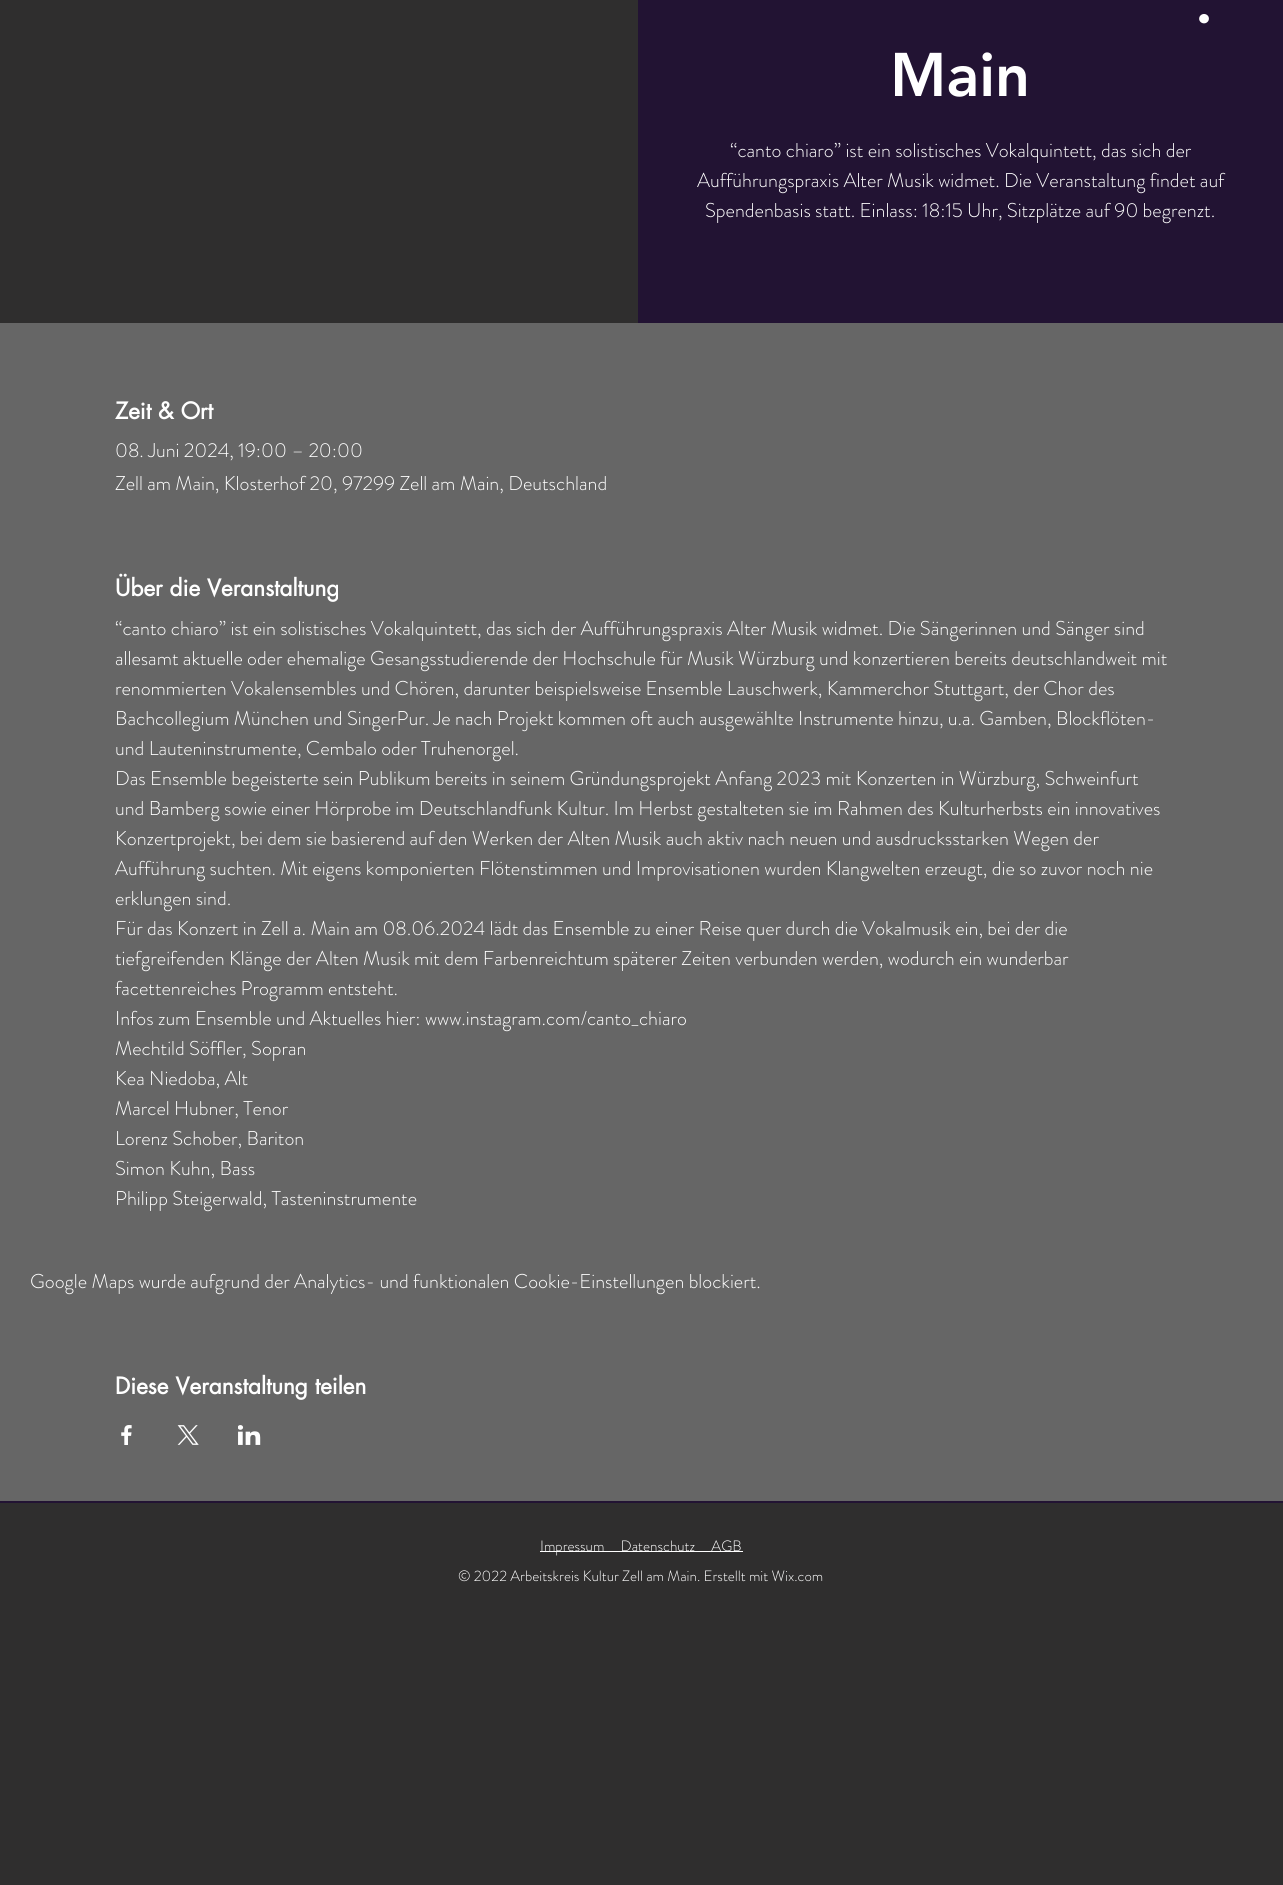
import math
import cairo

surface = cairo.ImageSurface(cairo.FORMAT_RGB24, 1283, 1885)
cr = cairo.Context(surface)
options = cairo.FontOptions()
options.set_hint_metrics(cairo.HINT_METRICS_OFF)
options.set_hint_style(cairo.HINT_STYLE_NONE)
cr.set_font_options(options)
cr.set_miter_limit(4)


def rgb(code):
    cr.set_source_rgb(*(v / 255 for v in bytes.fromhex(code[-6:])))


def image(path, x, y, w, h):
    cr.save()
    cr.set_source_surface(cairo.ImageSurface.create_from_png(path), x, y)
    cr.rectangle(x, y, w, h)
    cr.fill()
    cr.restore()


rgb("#221333")
cr.paint()
rgb("#2f2e2e")
cr.rectangle(0, 0, 638, 323)
cr.fill()
rgb("#666666")
cr.rectangle(0, 323, 1283, 1178)
cr.fill()
image("img/1.png", 121, 1425, 11, 20)
image("img/2.png", 177, 1425, 22, 20)
image("img/3.png", 238, 1425, 23, 20)
rgb("#2f2e2e")
cr.rectangle(0, 1503, 1283, 382)
cr.fill()
rgb("#ffffff")
cr.rectangle(540, 1551, 203, 1)
cr.fill()
cr.select_font_face("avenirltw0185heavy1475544 Black")
cr.set_font_size(61)
cr.move_to(1195, 23)
cr.show_text(".")
cr.move_to(890, 96)
cr.show_text("Main")
cr.select_font_face("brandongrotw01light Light")
cr.set_font_size(20)
for x, y, s in [
    (730, 157, "“canto chiaro” ist ein solistisches Vokalquintett, das sich der"),
    (697, 187, "Aufführungspraxis Alter Musik widmet. Die Veranstaltung findet auf"),
    (705, 217, "Spendenbasis statt. Einlass: 18:15 Uhr, Sitzplätze auf 90 begrenzt."),
]:
    cr.move_to(x, y)
    cr.show_text(s)
cr.select_font_face("futura", cairo.FONT_SLANT_NORMAL, cairo.FONT_WEIGHT_BOLD)
cr.set_font_size(22.5)
cr.move_to(115, 419)
cr.show_text("Zeit & Ort")
cr.select_font_face("brandongrotw01light Light")
cr.set_font_size(20)
cr.move_to(115, 457)
cr.show_text("08. Juni 2024, 19:00 – 20:00")
cr.move_to(115, 490)
cr.show_text("Zell am Main, Klosterhof 20, 97299 Zell am Main, Deutschland")
cr.select_font_face("futura", cairo.FONT_SLANT_NORMAL, cairo.FONT_WEIGHT_BOLD)
cr.set_font_size(22.5)
cr.move_to(115, 596)
cr.show_text("Über die Veranstaltung")
cr.select_font_face("brandongrotw01light Light")
cr.set_font_size(20)
for x, y, s in [
    (115, 635, "“canto chiaro” ist ein solistisches Vokalquintett, das sich der Aufführungspraxis Alter Musik widmet. Die Sängerinnen und Sänger sind"),
    (115, 665, "allesamt aktuelle oder ehemalige Gesangsstudierende der Hochschule für Musik Würzburg und konzertieren bereits deutschlandweit mit"),
    (115, 695, "renommierten Vokalensembles und Chören, darunter beispielsweise Ensemble Lauschwerk, Kammerchor Stuttgart, der Chor des"),
    (115, 725, "Bachcollegium München und SingerPur. Je nach Projekt kommen oft auch ausgewählte Instrumente hinzu, u.a. Gamben, Blockflöten-"),
    (115, 755, "und Lauteninstrumente, Cembalo oder Truhenorgel."),
    (115, 785, "Das Ensemble begeisterte sein Publikum bereits in seinem Gründungsprojekt Anfang 2023 mit Konzerten in Würzburg, Schweinfurt"),
    (115, 815, "und Bamberg sowie einer Hörprobe im Deutschlandfunk Kultur. Im Herbst gestalteten sie im Rahmen des Kulturherbsts ein innovatives"),
    (115, 845, "Konzertprojekt, bei dem sie basierend auf den Werken der Alten Musik auch aktiv nach neuen und ausdrucksstarken Wegen der"),
    (115, 875, "Aufführung suchten. Mit eigens komponierten Flötenstimmen und Improvisationen wurden Klangwelten erzeugt, die so zuvor noch nie"),
    (115, 905, "erklungen sind."),
    (115, 935, "Für das Konzert in Zell a. Main am 08.06.2024 lädt das Ensemble zu einer Reise quer durch die Vokalmusik ein, bei der die"),
    (115, 965, "tiefgreifenden Klänge der Alten Musik mit dem Farbenreichtum späterer Zeiten verbunden werden, wodurch ein wunderbar"),
    (115, 995, "facettenreiches Programm entsteht."),
    (115, 1025, "Infos zum Ensemble und Aktuelles hier: www.instagram.com/canto_chiaro"),
    (115, 1055, "Mechtild Söffler, Sopran"),
    (115, 1085, "Kea Niedoba, Alt"),
    (115, 1115, "Marcel Hubner, Tenor"),
    (115, 1145, "Lorenz Schober, Bariton"),
    (115, 1175, "Simon Kuhn, Bass"),
    (115, 1205, "Philipp Steigerwald, Tasteninstrumente"),
    (30, 1288, "Google Maps wurde aufgrund der Analytics- und funktionalen Cookie-Einstellungen blockiert."),
]:
    cr.move_to(x, y)
    cr.show_text(s)
cr.select_font_face("futura", cairo.FONT_SLANT_NORMAL, cairo.FONT_WEIGHT_BOLD)
cr.set_font_size(22.5)
cr.move_to(115, 1394)
cr.show_text("Diese Veranstaltung teilen")
cr.select_font_face("brandongrotw01light Light")
cr.set_font_size(15)
cr.move_to(540, 1551)
cr.show_text("Impressum     Datenschutz     AGB")
cr.move_to(458, 1581)
cr.show_text("© 2022 Arbeitskreis Kultur Zell am Main. Erstellt mit Wix.com")
surface.write_to_png("page.png")
